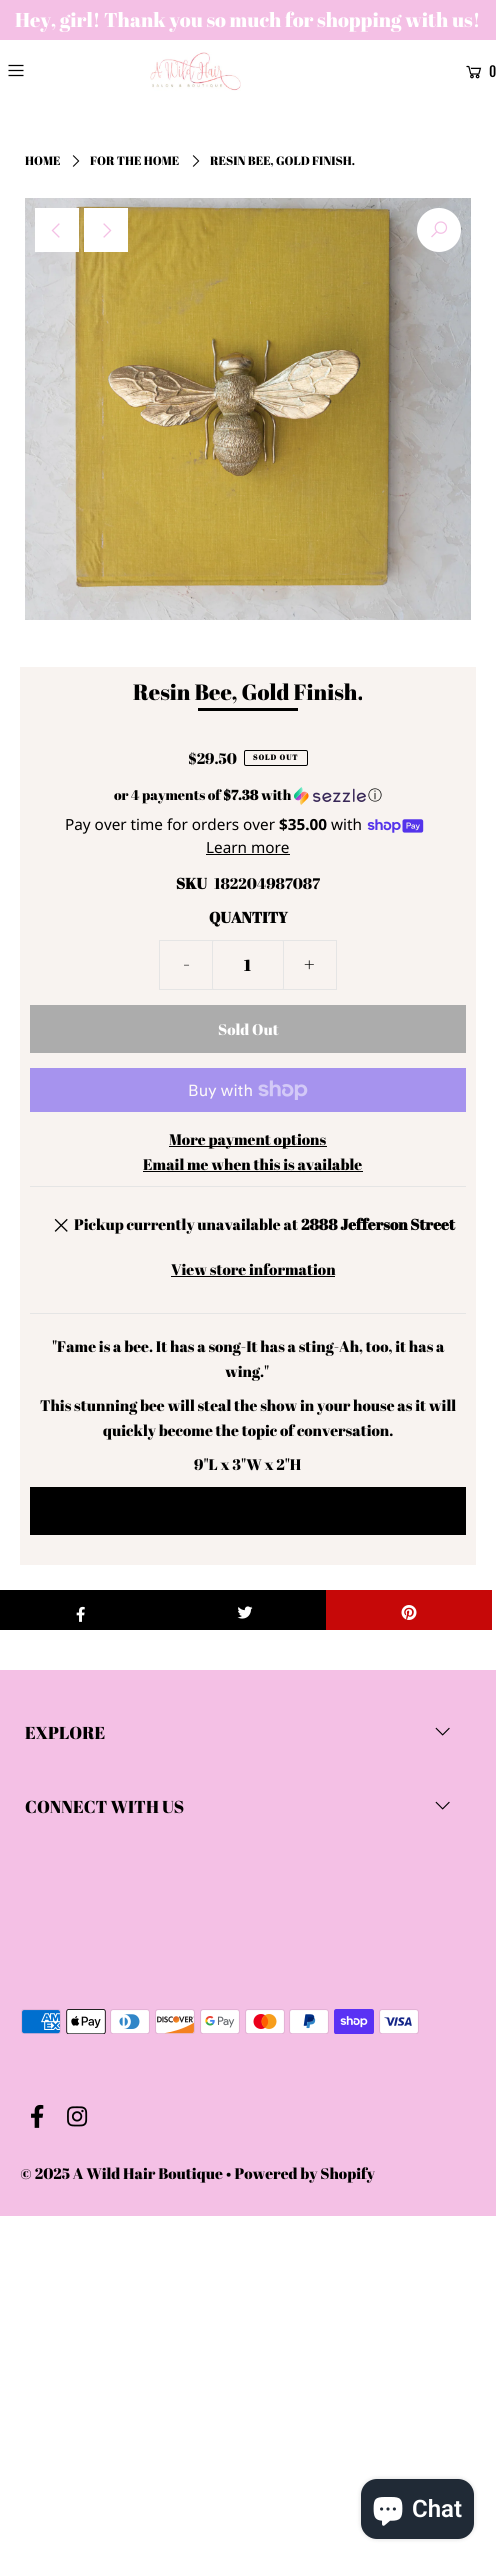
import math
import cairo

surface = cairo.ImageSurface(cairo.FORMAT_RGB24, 496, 2560)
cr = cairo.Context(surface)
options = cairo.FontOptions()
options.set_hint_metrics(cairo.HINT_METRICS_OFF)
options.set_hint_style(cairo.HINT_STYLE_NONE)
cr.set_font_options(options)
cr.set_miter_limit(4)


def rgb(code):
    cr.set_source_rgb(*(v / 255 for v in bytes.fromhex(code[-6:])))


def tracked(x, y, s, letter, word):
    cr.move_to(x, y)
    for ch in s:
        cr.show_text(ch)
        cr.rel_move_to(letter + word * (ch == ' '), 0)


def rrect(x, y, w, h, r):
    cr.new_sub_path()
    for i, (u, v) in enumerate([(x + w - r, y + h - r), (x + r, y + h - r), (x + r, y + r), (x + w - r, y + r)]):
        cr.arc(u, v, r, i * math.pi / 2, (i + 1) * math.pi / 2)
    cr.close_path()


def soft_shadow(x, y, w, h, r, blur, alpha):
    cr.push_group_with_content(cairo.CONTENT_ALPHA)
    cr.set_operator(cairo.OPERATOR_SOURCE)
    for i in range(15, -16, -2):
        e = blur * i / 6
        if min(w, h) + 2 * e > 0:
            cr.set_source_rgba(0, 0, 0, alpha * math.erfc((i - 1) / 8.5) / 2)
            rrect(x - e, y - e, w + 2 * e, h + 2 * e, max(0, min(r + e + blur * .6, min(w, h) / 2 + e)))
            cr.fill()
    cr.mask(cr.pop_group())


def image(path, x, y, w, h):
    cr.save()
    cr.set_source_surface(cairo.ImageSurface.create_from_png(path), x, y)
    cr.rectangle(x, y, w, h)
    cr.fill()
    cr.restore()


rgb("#ffffff")
cr.paint()
rgb("#f4c0e5")
cr.rectangle(0, 0, 496, 40)
cr.fill()
image("img/1.png", 8, 64, 16, 13)
image("img/2.png", 150, 52, 91, 39)
image("img/3.png", 466, 65, 16, 14)
image("img/4.png", 72, 155, 8, 12)
image("img/4.png", 192, 155, 8, 12)
image("img/5.png", 25, 198, 446, 422)
rgb("#ffffff")
cr.arc(439, 230, 22, 0, 2 * math.pi)
cr.fill()
image("img/6.png", 431, 221, 17, 17)
cr.rectangle(35, 208, 44, 44)
cr.fill()
image("img/7.png", 51, 223, 9, 15)
cr.rectangle(84, 208, 44, 44)
cr.fill()
image("img/8.png", 103, 223, 9, 15)
for x, y, w, h, color in [
    (20, 667, 456, 898, "#f8f3f0"),
    (198, 708, 100, 3, "#000000"),
    (30, 1186, 436, 1, "#e5e5e5"),
]:
    rgb(color)
    cr.rectangle(x, y, w, h)
    cr.fill()
rrect(244.5, 750.5, 63, 15, 1.5)
rgb("#000000")
cr.set_line_width(1)
cr.stroke()
image("img/9.png", 294, 787, 72, 18)
image("img/10.png", 367, 819, 57, 14)
for x, y, w, h, color in [
    (206, 854, 84, 1, "#000000"),
    (159, 940, 55, 1, "#e5e5e5"),
    (159, 989, 55, 1, "#e5e5e5"),
    (159, 940, 1, 50, "#e5e5e5"),
]:
    rgb(color)
    cr.rectangle(x, y, w, h)
    cr.fill()
rrect(212.5, 940.5, 71, 49, 1.5)
cr.stroke()
for x, y, w, h, color in [
    (282, 940, 55, 1, "#e5e5e5"),
    (336, 940, 1, 50, "#e5e5e5"),
    (282, 989, 55, 1, "#e5e5e5"),
    (30, 1005, 436, 48, "#acacac"),
    (30, 1068, 436, 44, "#a693ee"),
]:
    rgb(color)
    cr.rectangle(x, y, w, h)
    cr.fill()
image("img/11.png", 258, 1080, 50, 20)
for x, y, w, h, color in [
    (169, 1146, 158, 1, "#000000"),
    (143, 1171, 220, 1, "#000000"),
    (30, 1313, 436, 1, "#e5e5e5"),
]:
    rgb(color)
    cr.rectangle(x, y, w, h)
    cr.fill()
image("img/12.png", 54, 1218, 14, 14)
for x, y, w, h, color in [
    (171, 1276, 164, 1, "#000000"),
    (30, 1487, 436, 48, "#000000"),
    (0, 1590, 326, 40, "#000000"),
]:
    rgb(color)
    cr.rectangle(x, y, w, h)
    cr.fill()
image("img/13.png", 76, 1606, 9, 16)
rgb("#c60808")
cr.rectangle(326, 1590, 166, 40)
cr.fill()
image("img/14.png", 401, 1605, 16, 15)
image("img/15.png", 237, 1606, 16, 13)
rgb("#f4c0e5")
cr.rectangle(0, 1670, 496, 546)
cr.fill()
image("img/16.png", 435, 1727, 15, 9)
image("img/16.png", 435, 1801, 15, 9)
image("img/17.png", 21, 2009, 40, 25)
image("img/18.png", 66, 2009, 40, 25)
image("img/19.png", 110, 2009, 40, 25)
image("img/20.png", 155, 2009, 40, 25)
image("img/21.png", 200, 2009, 40, 25)
image("img/22.png", 245, 2009, 40, 25)
image("img/23.png", 289, 2009, 40, 25)
image("img/24.png", 334, 2009, 40, 25)
image("img/25.png", 379, 2009, 40, 25)
image("img/26.png", 31, 2104, 13, 24)
image("img/27.png", 67, 2106, 21, 21)
rgb("#000000")
soft_shadow(361, 2479, 113, 60, 16, 2.5, 0.15)
rgb("#202a36")
rrect(361, 2479, 113, 60, 16)
cr.fill()
image("img/28.png", 373, 2497, 30, 29)
cr.select_font_face("Abril Fatface")
cr.set_font_size(20)
rgb("#ffffff")
cr.move_to(15, 27)
cr.show_text("Hey, girl! Thank you so much for shopping with us!")
cr.select_font_face("Fjalla One")
cr.set_font_size(14)
rgb("#000000")
cr.move_to(489, 77)
cr.show_text("0")
cr.select_font_face("Abril Fatface")
cr.set_font_size(12)
for x, y, s in [
    (25, 165, "HOME"),
    (90, 165, "FOR THE HOME"),
    (210, 165, "RESIN BEE, GOLD FINISH."),
]:
    cr.move_to(x, y)
    cr.show_text(s)
cr.set_font_size(22.1)
cr.move_to(133, 700)
cr.show_text("Resin Bee, Gold Finish.")
cr.set_font_size(15.3)
cr.move_to(188, 764)
cr.show_text("$29.50")
cr.select_font_face("Abril Fatface", cairo.FONT_SLANT_NORMAL, cairo.FONT_WEIGHT_BOLD)
cr.set_font_size(7.5)
tracked(253, 760, "SOLD OUT", 1, 0)
cr.select_font_face("Abril Fatface")
cr.set_font_size(14)
cr.move_to(114, 800)
cr.show_text("or 4 payments of")
cr.select_font_face("Abril Fatface", cairo.FONT_SLANT_NORMAL, cairo.FONT_WEIGHT_BOLD)
cr.move_to(223, 800)
cr.show_text("$7.38")
cr.select_font_face("Abril Fatface")
cr.move_to(261, 800)
cr.show_text("with")
cr.select_font_face("WenQuanYi Zen Hei Medium")
cr.move_to(368, 800)
cr.show_text("ⓘ")
cr.select_font_face("Noto Sans")
cr.set_font_size(15.3)
cr.move_to(65, 830)
cr.show_text("Pay over time for orders over")
cr.select_font_face("Noto Sans", cairo.FONT_SLANT_NORMAL, cairo.FONT_WEIGHT_BOLD)
cr.move_to(279, 830)
cr.show_text("$35.00")
cr.select_font_face("Noto Sans")
cr.move_to(331, 830)
cr.show_text("with")
cr.move_to(206, 853)
cr.show_text("Learn more")
cr.select_font_face("Abril Fatface", cairo.FONT_SLANT_NORMAL, cairo.FONT_WEIGHT_BOLD)
cr.move_to(176, 889)
cr.show_text("SKU")
cr.select_font_face("Abril Fatface")
cr.move_to(214, 889)
cr.show_text("182204987087")
cr.select_font_face("Abril Fatface", cairo.FONT_SLANT_NORMAL, cairo.FONT_WEIGHT_BOLD)
cr.move_to(209, 923)
cr.show_text("QUANTITY")
cr.select_font_face("Abril Fatface")
cr.set_font_size(20)
cr.move_to(183, 971)
cr.show_text("-")
cr.select_font_face("Abril Fatface", cairo.FONT_SLANT_NORMAL, cairo.FONT_WEIGHT_BOLD)
cr.set_font_size(15.3)
cr.move_to(244, 971)
cr.show_text("1")
cr.select_font_face("Abril Fatface")
cr.set_font_size(20)
cr.move_to(304, 971)
cr.show_text("+")
cr.set_font_size(15.3)
rgb("#ffffff")
cr.move_to(218, 1035)
cr.show_text("Sold Out")
cr.select_font_face("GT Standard")
cr.set_font_size(16)
rgb("#fcf9f8")
cr.move_to(188, 1096)
cr.show_text("Buy with")
cr.select_font_face("Abril Fatface")
cr.set_font_size(15.3)
rgb("#000000")
for x, y, s in [
    (169, 1145, "More payment options"),
    (143, 1170, "Email me when this is available"),
    (74, 1230, "Pickup currently unavailable at"),
]:
    cr.move_to(x, y)
    cr.show_text(s)
cr.select_font_face("Abril Fatface", cairo.FONT_SLANT_NORMAL, cairo.FONT_WEIGHT_BOLD)
cr.move_to(301, 1230)
cr.show_text("2888 Jefferson Street")
cr.select_font_face("Abril Fatface")
for x, y, s in [
    (171, 1275, "View store information"),
    (52, 1352, "\"Fame is a bee. It has a song-It has a sting-Ah, too, it has a"),
    (225, 1377, "wing.\""),
    (40, 1411, "This stunning bee will steal the show in your house as it will"),
    (103, 1436, "quickly become the topic of conversation."),
    (194, 1470, "9\"L x 3\"W x 2\"H"),
]:
    cr.move_to(x, y)
    cr.show_text(s)
cr.set_font_size(17.25)
cr.move_to(25, 1739)
cr.show_text("EXPLORE")
cr.move_to(25, 1813)
cr.show_text("CONNECT WITH US")
cr.set_font_size(15.3)
cr.move_to(20, 2179)
cr.show_text("© 2025 A Wild Hair Boutique • Powered by Shopify")
cr.select_font_face("Roboto SemiBold")
cr.set_font_size(24)
rgb("#ffffff")
cr.move_to(412, 2517)
cr.show_text("Chat")
surface.write_to_png("page.png")
